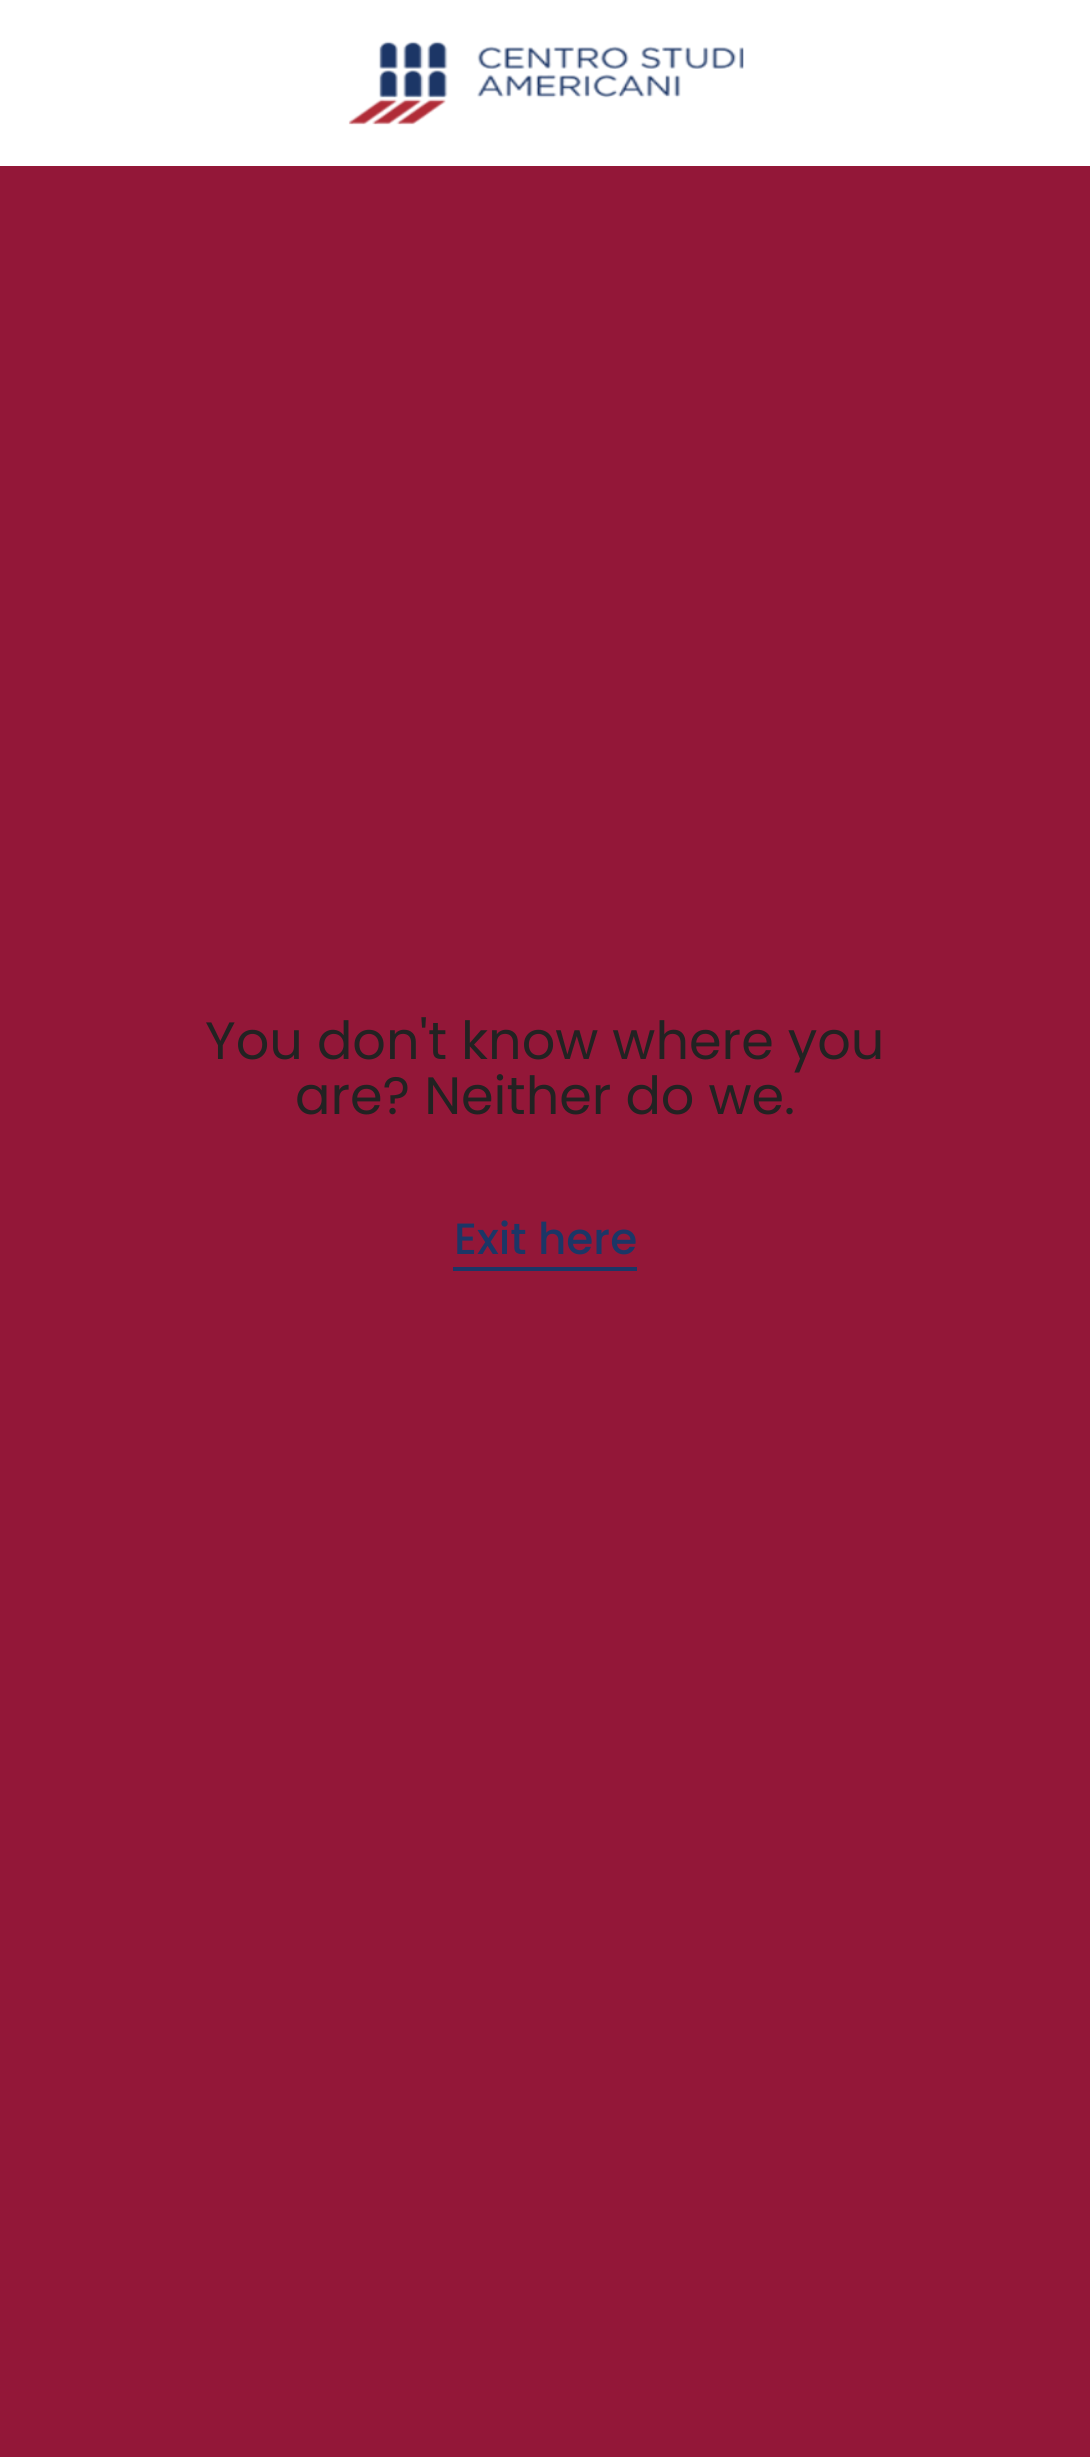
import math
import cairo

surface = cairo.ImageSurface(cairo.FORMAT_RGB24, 1090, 2457)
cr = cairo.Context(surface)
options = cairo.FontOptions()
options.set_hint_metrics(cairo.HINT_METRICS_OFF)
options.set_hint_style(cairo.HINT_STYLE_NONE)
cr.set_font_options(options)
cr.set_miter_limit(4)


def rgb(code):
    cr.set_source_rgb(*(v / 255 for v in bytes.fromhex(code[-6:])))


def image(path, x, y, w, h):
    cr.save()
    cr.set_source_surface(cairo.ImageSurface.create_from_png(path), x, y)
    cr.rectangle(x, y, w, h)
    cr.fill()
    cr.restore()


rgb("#931738")
cr.paint()
rgb("#ffffff")
cr.rectangle(0, 0, 1090, 166)
cr.fill()
image("img/1.png", 348, 41, 396, 84)
rgb("#1c3666")
cr.rectangle(453, 1267, 184, 4)
cr.fill()
cr.select_font_face("Poppins")
cr.set_font_size(52.5)
rgb("#222222")
cr.move_to(205, 1059)
cr.show_text("You don't know where you")
cr.move_to(295, 1114)
cr.show_text("are? Neither do we.")
cr.select_font_face("Poppins Medium")
cr.set_font_size(43.75)
rgb("#1c3666")
cr.move_to(454, 1254)
cr.show_text("Exit here")
surface.write_to_png("page.png")
